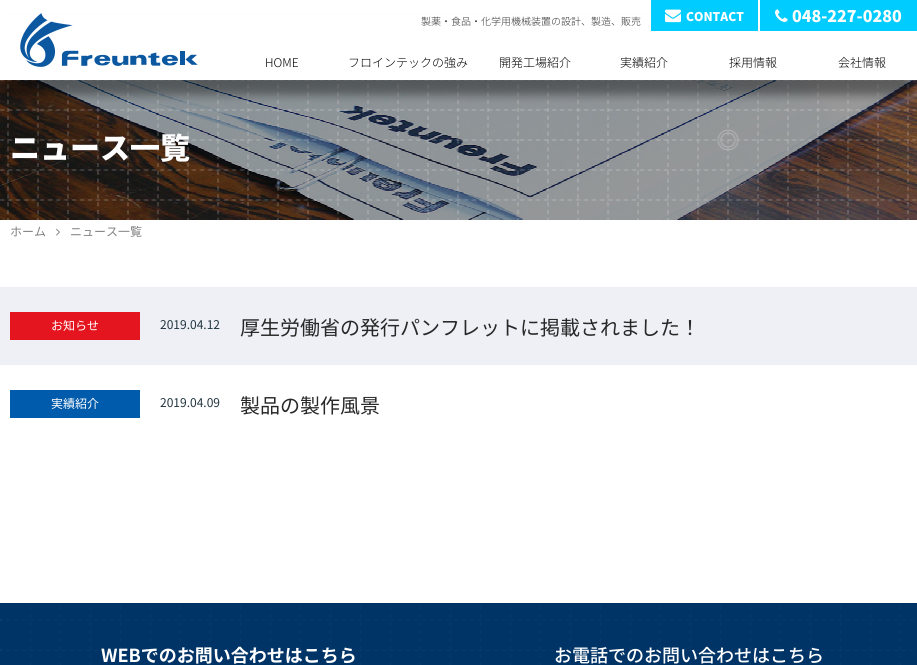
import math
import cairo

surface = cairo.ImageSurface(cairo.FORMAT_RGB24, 917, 665)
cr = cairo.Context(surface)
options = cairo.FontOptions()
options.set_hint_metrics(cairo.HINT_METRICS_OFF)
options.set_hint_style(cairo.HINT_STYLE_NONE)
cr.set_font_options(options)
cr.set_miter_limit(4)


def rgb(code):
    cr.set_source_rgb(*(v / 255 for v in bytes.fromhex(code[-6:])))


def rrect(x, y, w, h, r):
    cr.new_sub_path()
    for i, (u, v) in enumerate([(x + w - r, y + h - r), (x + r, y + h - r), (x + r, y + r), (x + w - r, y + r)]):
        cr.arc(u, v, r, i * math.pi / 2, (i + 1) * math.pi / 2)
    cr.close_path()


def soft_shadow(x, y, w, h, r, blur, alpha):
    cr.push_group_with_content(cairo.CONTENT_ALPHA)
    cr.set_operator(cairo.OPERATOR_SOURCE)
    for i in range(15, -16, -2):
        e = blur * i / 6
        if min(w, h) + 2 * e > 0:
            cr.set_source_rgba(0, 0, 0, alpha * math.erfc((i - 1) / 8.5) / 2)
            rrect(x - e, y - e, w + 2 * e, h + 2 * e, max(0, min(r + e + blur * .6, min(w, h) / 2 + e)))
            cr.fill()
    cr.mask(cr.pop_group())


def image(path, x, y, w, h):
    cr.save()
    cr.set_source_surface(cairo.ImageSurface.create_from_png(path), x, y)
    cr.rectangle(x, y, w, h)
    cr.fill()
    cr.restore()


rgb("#ffffff")
cr.paint()
image("img/4.png", 0, 80, 917, 140)
rgb("#000000")
soft_shadow(5, 25, 907, 70, 0, 5, 0.4)
rgb("#ffffff")
cr.rectangle(0, 15, 917, 65)
cr.fill()
image("img/1.png", 20, 13, 178, 54)
rgb("#00ccff")
cr.rectangle(651, 0, 107, 31)
cr.fill()
image("img/2.png", 665, 9, 16, 14)
cr.rectangle(760, 0, 157, 31)
cr.fill()
image("img/3.png", 775, 9, 13, 13)
image("img/5.png", 56, 228, 4, 8)
for x, y, w, h, color in [
    (0, 287, 917, 78, "#eef0f6"),
    (10, 312, 130, 28, "#e5151f"),
    (10, 390, 130, 28, "#005bac"),
    (0, 603, 917, 62, "#003366"),
]:
    rgb(color)
    cr.rectangle(x, y, w, h)
    cr.fill()
image("img/6.png", 0, 606, 914, 59)
cr.select_font_face("Noto Sans JP Light")
cr.set_font_size(10)
rgb("#333333")
cr.move_to(421, 25)
cr.show_text("製薬・食品・化学用機械装置の設計、製造、販売")
cr.select_font_face("Noto Sans JP Black")
cr.set_font_size(12)
rgb("#ffffff")
cr.move_to(686, 21)
cr.show_text("CONTACT")
cr.set_font_size(16)
cr.move_to(792, 22)
cr.show_text("048-227-0280")
cr.select_font_face("Noto Sans JP Light")
cr.set_font_size(12)
rgb("#000000")
for x, y, s in [
    (265, 67, "HOME"),
    (348, 67, "フロインテックの強み"),
    (499, 67, "開発工場紹介"),
    (620, 67, "実績紹介"),
    (729, 67, "採用情報"),
    (838, 67, "会社情報"),
]:
    cr.move_to(x, y)
    cr.show_text(s)
cr.select_font_face("Noto Sans JP Black")
cr.set_font_size(30)
rgb("#ffffff")
cr.move_to(10, 159)
cr.show_text("ニュース一覧")
cr.select_font_face("Noto Sans JP")
cr.set_font_size(12)
rgb("#808080")
cr.move_to(10, 236)
cr.show_text("ホーム")
cr.move_to(70, 236)
cr.show_text("ニュース一覧")
rgb("#ffffff")
cr.move_to(51, 330)
cr.show_text("お知らせ")
rgb("#22353f")
cr.move_to(160, 329)
cr.show_text("2019.04.12")
cr.set_font_size(20)
rgb("#282828")
cr.move_to(240, 335)
cr.show_text("厚生労働省の発行パンフレットに掲載されました！")
cr.set_font_size(12)
rgb("#ffffff")
cr.move_to(51, 408)
cr.show_text("実績紹介")
rgb("#22353f")
cr.move_to(160, 407)
cr.show_text("2019.04.09")
cr.set_font_size(20)
rgb("#282828")
cr.move_to(240, 413)
cr.show_text("製品の製作風景")
cr.select_font_face("Noto Sans JP", cairo.FONT_SLANT_NORMAL, cairo.FONT_WEIGHT_BOLD)
cr.set_font_size(18)
rgb("#ffffff")
cr.move_to(101, 662)
cr.show_text("WEBでのお問い合わせはこちら")
cr.select_font_face("Noto Sans JP Medium")
cr.move_to(554, 662)
cr.show_text("お電話でのお問い合わせはこちら")
surface.write_to_png("page.png")
